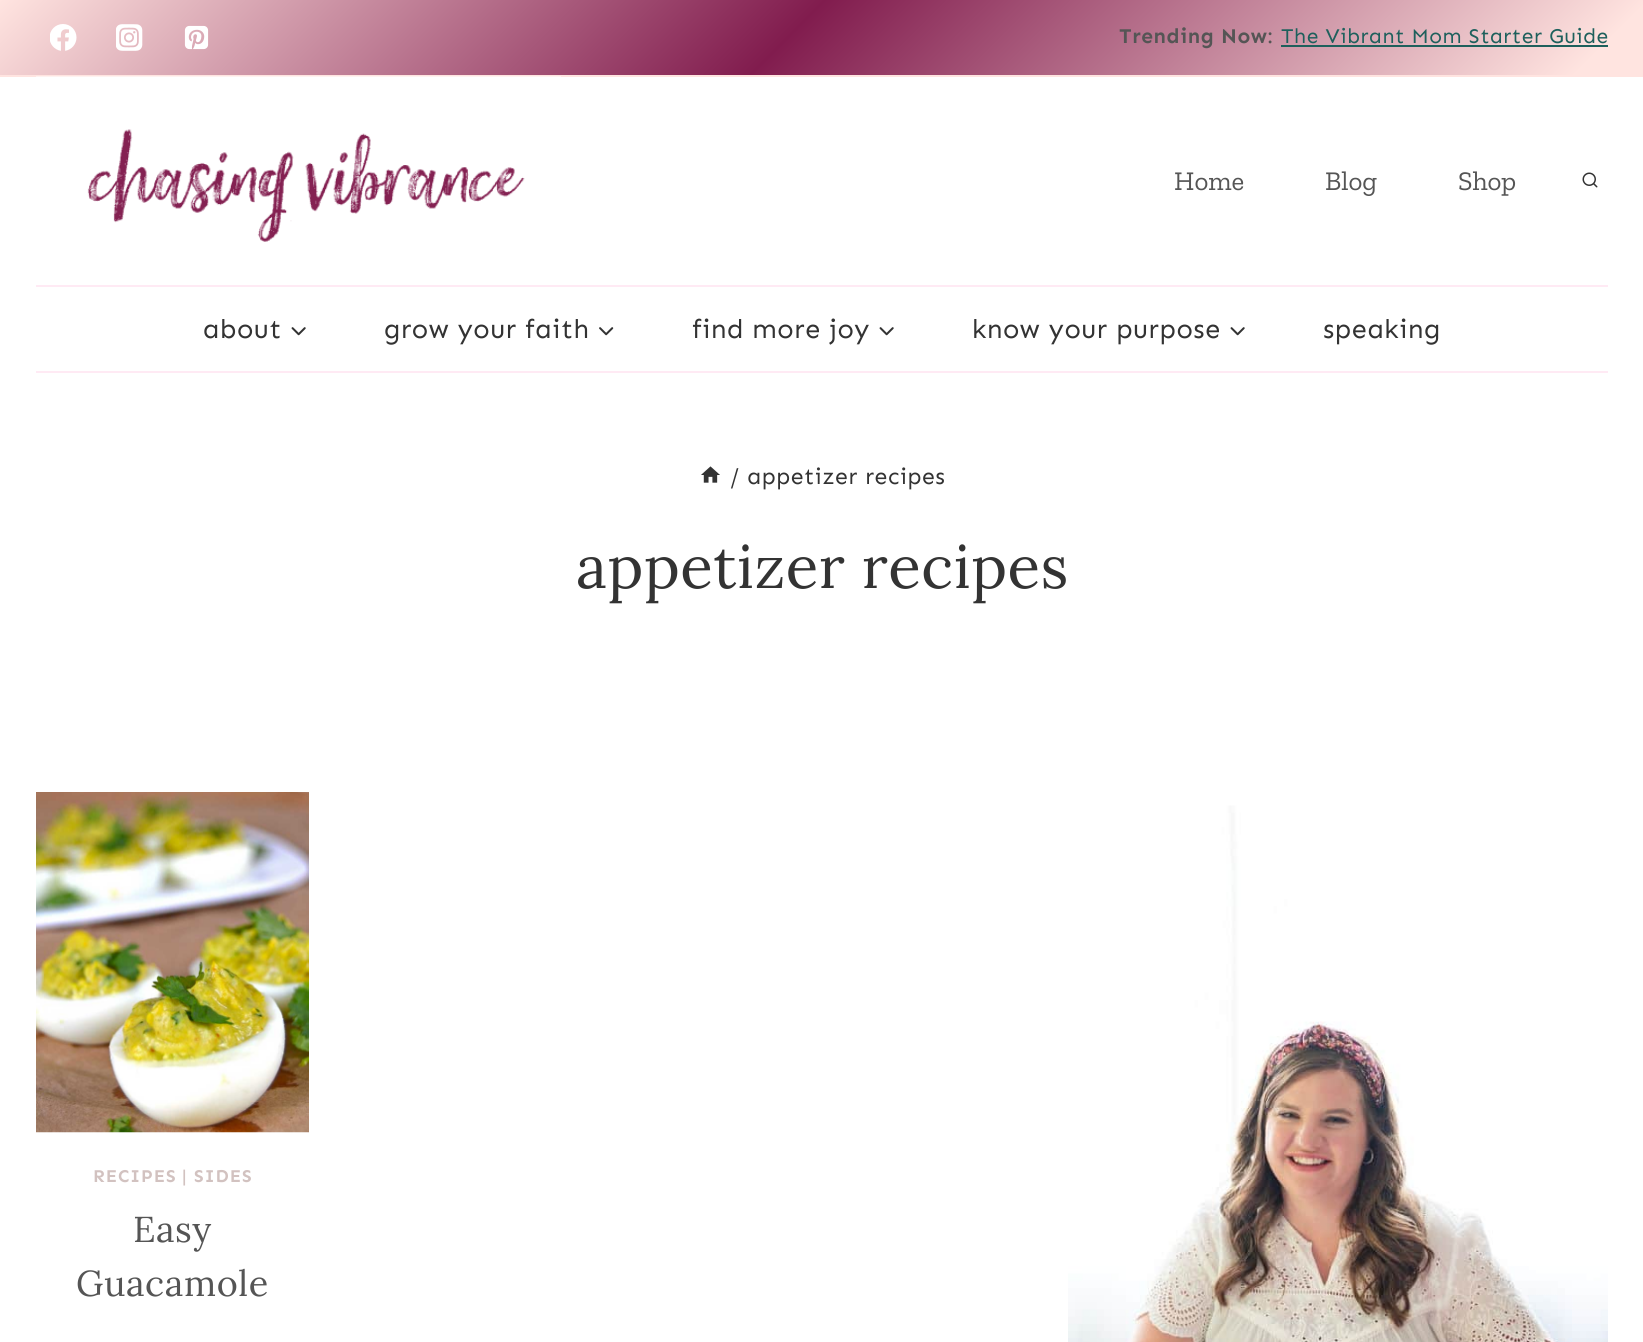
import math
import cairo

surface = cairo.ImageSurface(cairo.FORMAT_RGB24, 1643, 1342)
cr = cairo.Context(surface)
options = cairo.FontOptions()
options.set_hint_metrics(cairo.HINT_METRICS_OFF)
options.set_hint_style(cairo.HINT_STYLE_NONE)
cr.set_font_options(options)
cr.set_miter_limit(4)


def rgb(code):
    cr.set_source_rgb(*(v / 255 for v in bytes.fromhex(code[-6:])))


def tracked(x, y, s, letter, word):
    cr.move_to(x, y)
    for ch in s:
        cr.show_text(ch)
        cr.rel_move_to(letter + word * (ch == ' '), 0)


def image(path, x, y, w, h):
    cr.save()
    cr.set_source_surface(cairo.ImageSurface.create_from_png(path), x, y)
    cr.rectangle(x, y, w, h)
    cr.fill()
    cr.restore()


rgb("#ffffff")
cr.paint()
gradient = cairo.LinearGradient(392, -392, 1252, 467)
gradient.add_color_stop_rgba(0, 1, 0.894, 0.878, 1)
gradient.add_color_stop_rgba(0.48, 0.506, 0.11, 0.306, 1)
gradient.add_color_stop_rgba(0.96, 1, 0.894, 0.878, 1)
cr.set_source(gradient)
cr.rectangle(0, 0, 1643, 75)
cr.fill()
rgb("#ffe4e0")
cr.rectangle(0, 75, 1643, 2)
cr.fill()
image("img/1.png", 50, 24, 27, 27)
image("img/2.png", 116, 24, 27, 27)
image("img/3.png", 184, 25, 25, 25)
rgb("#1e605c")
cr.rectangle(1281, 45, 327, 2)
cr.fill()
image("img/4.png", 36, 76, 525, 166)
image("img/5.png", 1582, 172, 16, 16)
rgb("#ffeaf4")
cr.rectangle(36, 285, 1572, 2)
cr.fill()
cr.rectangle(36, 371, 1572, 2)
cr.fill()
image("img/6.png", 291, 327, 15, 9)
image("img/7.png", 599, 327, 15, 9)
image("img/6.png", 879, 327, 15, 9)
image("img/6.png", 1230, 327, 15, 9)
image("img/8.png", 701, 466, 19, 17)
image("img/9.png", 36, 792, 273, 341)
image("img/10.png", 1068, 805, 540, 537)
cr.select_font_face("Sen", cairo.FONT_SLANT_NORMAL, cairo.FONT_WEIGHT_BOLD)
cr.set_font_size(21)
rgb("#555555")
tracked(1119, 43, "Trending Now", 0.55, 0)
cr.select_font_face("Sen")
tracked(1267, 43, ":", 0.55, 0)
rgb("#1e605c")
tracked(1281, 43, "The Vibrant Mom Starter Guide", 0.55, 0)
cr.select_font_face("Zilla Slab")
cr.set_font_size(27)
rgb("#555555")
for x, y, s in [
    (1174, 190, "Home"),
    (1325, 190, "Blog"),
    (1458, 190, "Shop"),
]:
    cr.move_to(x, y)
    cr.show_text(s)
cr.select_font_face("Sen")
rgb("#333333")
for x, y, s in [
    (203, 338, "about"),
    (384, 338, "grow your faith"),
    (692, 338, "find more joy"),
    (972, 338, "know your purpose"),
    (1323, 338, "speaking"),
]:
    tracked(x, y, s, 0.55, 0)
cr.set_font_size(23)
tracked(730, 484, "/ appetizer recipes", 0.55, 0)
cr.select_font_face("Lora")
cr.set_font_size(60)
tracked(576, 588, "appetizer recipes", 0.55, 0)
cr.select_font_face("Sen", cairo.FONT_SLANT_NORMAL, cairo.FONT_WEIGHT_BOLD)
cr.set_font_size(18)
rgb("#d2c2c0")
tracked(93, 1182, "RECIPES", 1, 0)
cr.select_font_face("Sen SemiBold")
tracked(182, 1182, "|", 1, 0)
cr.select_font_face("Sen", cairo.FONT_SLANT_NORMAL, cairo.FONT_WEIGHT_BOLD)
tracked(194, 1182, "SIDES", 1, 0)
cr.select_font_face("Lora")
cr.set_font_size(36)
rgb("#555555")
tracked(133, 1242, "Easy", 0.55, 0)
tracked(76, 1296, "Guacamole", 0.55, 0)
surface.write_to_png("page.png")
